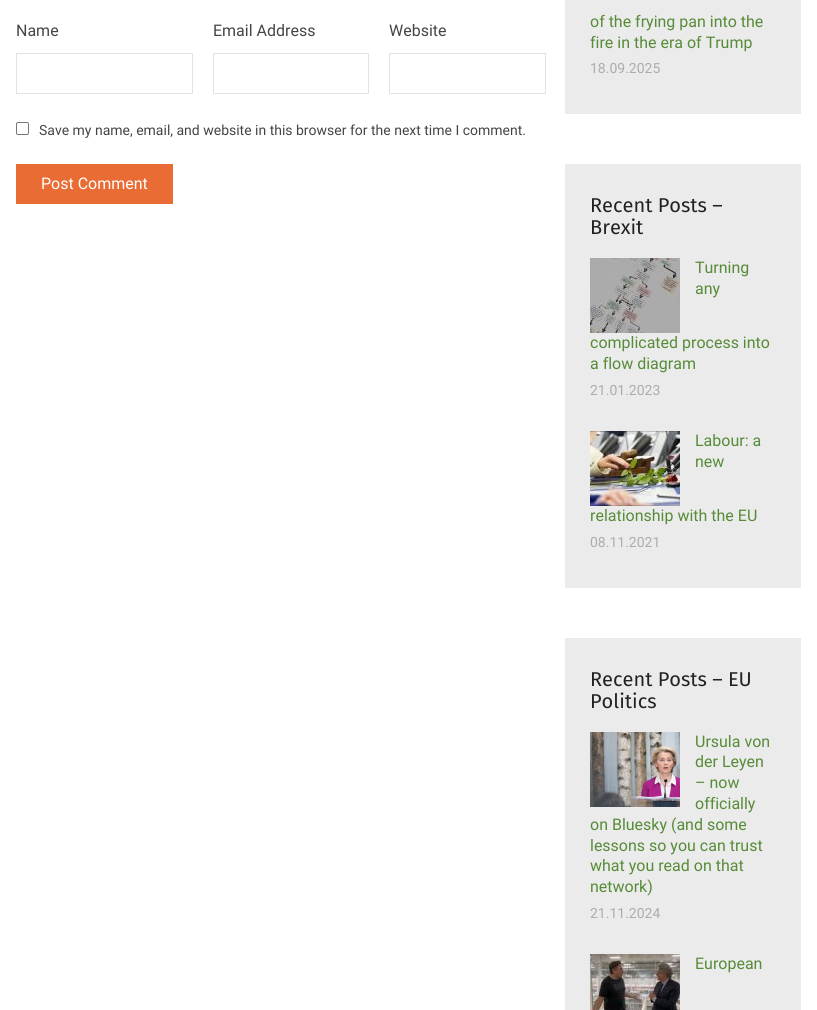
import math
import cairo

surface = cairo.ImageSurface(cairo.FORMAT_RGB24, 817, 1010)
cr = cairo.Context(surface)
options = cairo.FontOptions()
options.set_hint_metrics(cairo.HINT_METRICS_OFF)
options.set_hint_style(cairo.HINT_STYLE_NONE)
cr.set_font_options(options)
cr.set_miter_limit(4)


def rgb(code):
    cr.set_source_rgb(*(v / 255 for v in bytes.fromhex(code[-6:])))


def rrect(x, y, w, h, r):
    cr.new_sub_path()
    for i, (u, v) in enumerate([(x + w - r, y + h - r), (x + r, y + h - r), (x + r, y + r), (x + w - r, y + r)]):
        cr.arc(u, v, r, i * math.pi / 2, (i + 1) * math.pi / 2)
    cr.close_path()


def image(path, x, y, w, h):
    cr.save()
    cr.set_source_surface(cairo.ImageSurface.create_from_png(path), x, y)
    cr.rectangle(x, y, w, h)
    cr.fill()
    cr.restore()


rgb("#ffffff")
cr.paint()
cr.rectangle(16.5, 53.5, 176, 40)
rgb("#e2e2e2")
cr.set_line_width(1)
cr.stroke()
cr.rectangle(213.5, 53.5, 155, 40)
cr.stroke()
cr.rectangle(389.5, 53.5, 156, 40)
cr.stroke()
rrect(16.5, 122.5, 12, 12, 1.5)
rgb("#767676")
cr.stroke()
for x, y, w, h, color in [
    (16, 164, 157, 40, "#ea6c35"),
    (565, 0, 236, 114, "#ebebeb"),
    (565, 164, 236, 424, "#ebebeb"),
]:
    rgb(color)
    cr.rectangle(x, y, w, h)
    cr.fill()
image("img/1.png", 590, 258, 90, 75)
image("img/2.png", 590, 431, 90, 75)
cr.rectangle(565, 638, 236, 372)
cr.fill()
image("img/3.png", 590, 732, 90, 75)
image("img/4.png", 590, 954, 90, 56)
cr.select_font_face("Roboto")
cr.set_font_size(16)
rgb("#444444")
for x, y, s in [
    (16, 36, "Name"),
    (213, 36, "Email Address"),
    (389, 36, "Website"),
]:
    cr.move_to(x, y)
    cr.show_text(s)
cr.set_font_size(14)
cr.move_to(39, 135)
cr.show_text("Save my name, email, and website in this browser for the next time I comment.")
cr.set_font_size(16)
rgb("#ffffff")
cr.move_to(41, 189)
cr.show_text("Post Comment")
rgb("#568b37")
cr.move_to(590, 27)
cr.show_text("of the frying pan into the")
cr.move_to(590, 48)
cr.show_text("fire in the era of Trump")
cr.set_font_size(14)
rgb("#acacac")
cr.move_to(590, 73)
cr.show_text("18.09.2025")
cr.select_font_face("Fira Sans")
cr.set_font_size(20)
rgb("#222222")
cr.move_to(590, 212)
cr.show_text("Recent Posts –")
cr.move_to(590, 234)
cr.show_text("Brexit")
cr.select_font_face("Roboto")
cr.set_font_size(16)
rgb("#568b37")
for x, y, s in [
    (695, 273, "Turning"),
    (695, 294, "any"),
    (590, 348, "complicated process into"),
    (590, 369, "a flow diagram"),
]:
    cr.move_to(x, y)
    cr.show_text(s)
cr.set_font_size(14)
rgb("#acacac")
cr.move_to(590, 395)
cr.show_text("21.01.2023")
cr.set_font_size(16)
rgb("#568b37")
for x, y, s in [
    (695, 446, "Labour: a"),
    (695, 467, "new"),
    (590, 521, "relationship with the EU"),
]:
    cr.move_to(x, y)
    cr.show_text(s)
cr.set_font_size(14)
rgb("#acacac")
cr.move_to(590, 547)
cr.show_text("08.11.2021")
cr.select_font_face("Fira Sans")
cr.set_font_size(20)
rgb("#222222")
cr.move_to(590, 686)
cr.show_text("Recent Posts – EU")
cr.move_to(590, 708)
cr.show_text("Politics")
cr.select_font_face("Roboto")
cr.set_font_size(16)
rgb("#568b37")
for x, y, s in [
    (695, 747, "Ursula von"),
    (695, 767, "der Leyen"),
    (695, 788, "– now"),
    (695, 809, "officially"),
    (590, 830, "on Bluesky (and some"),
    (590, 851, "lessons so you can trust"),
    (590, 871, "what you read on that"),
    (590, 892, "network)"),
]:
    cr.move_to(x, y)
    cr.show_text(s)
cr.set_font_size(14)
rgb("#acacac")
cr.move_to(590, 918)
cr.show_text("21.11.2024")
cr.set_font_size(16)
rgb("#568b37")
cr.move_to(695, 969)
cr.show_text("European")
surface.write_to_png("page.png")
